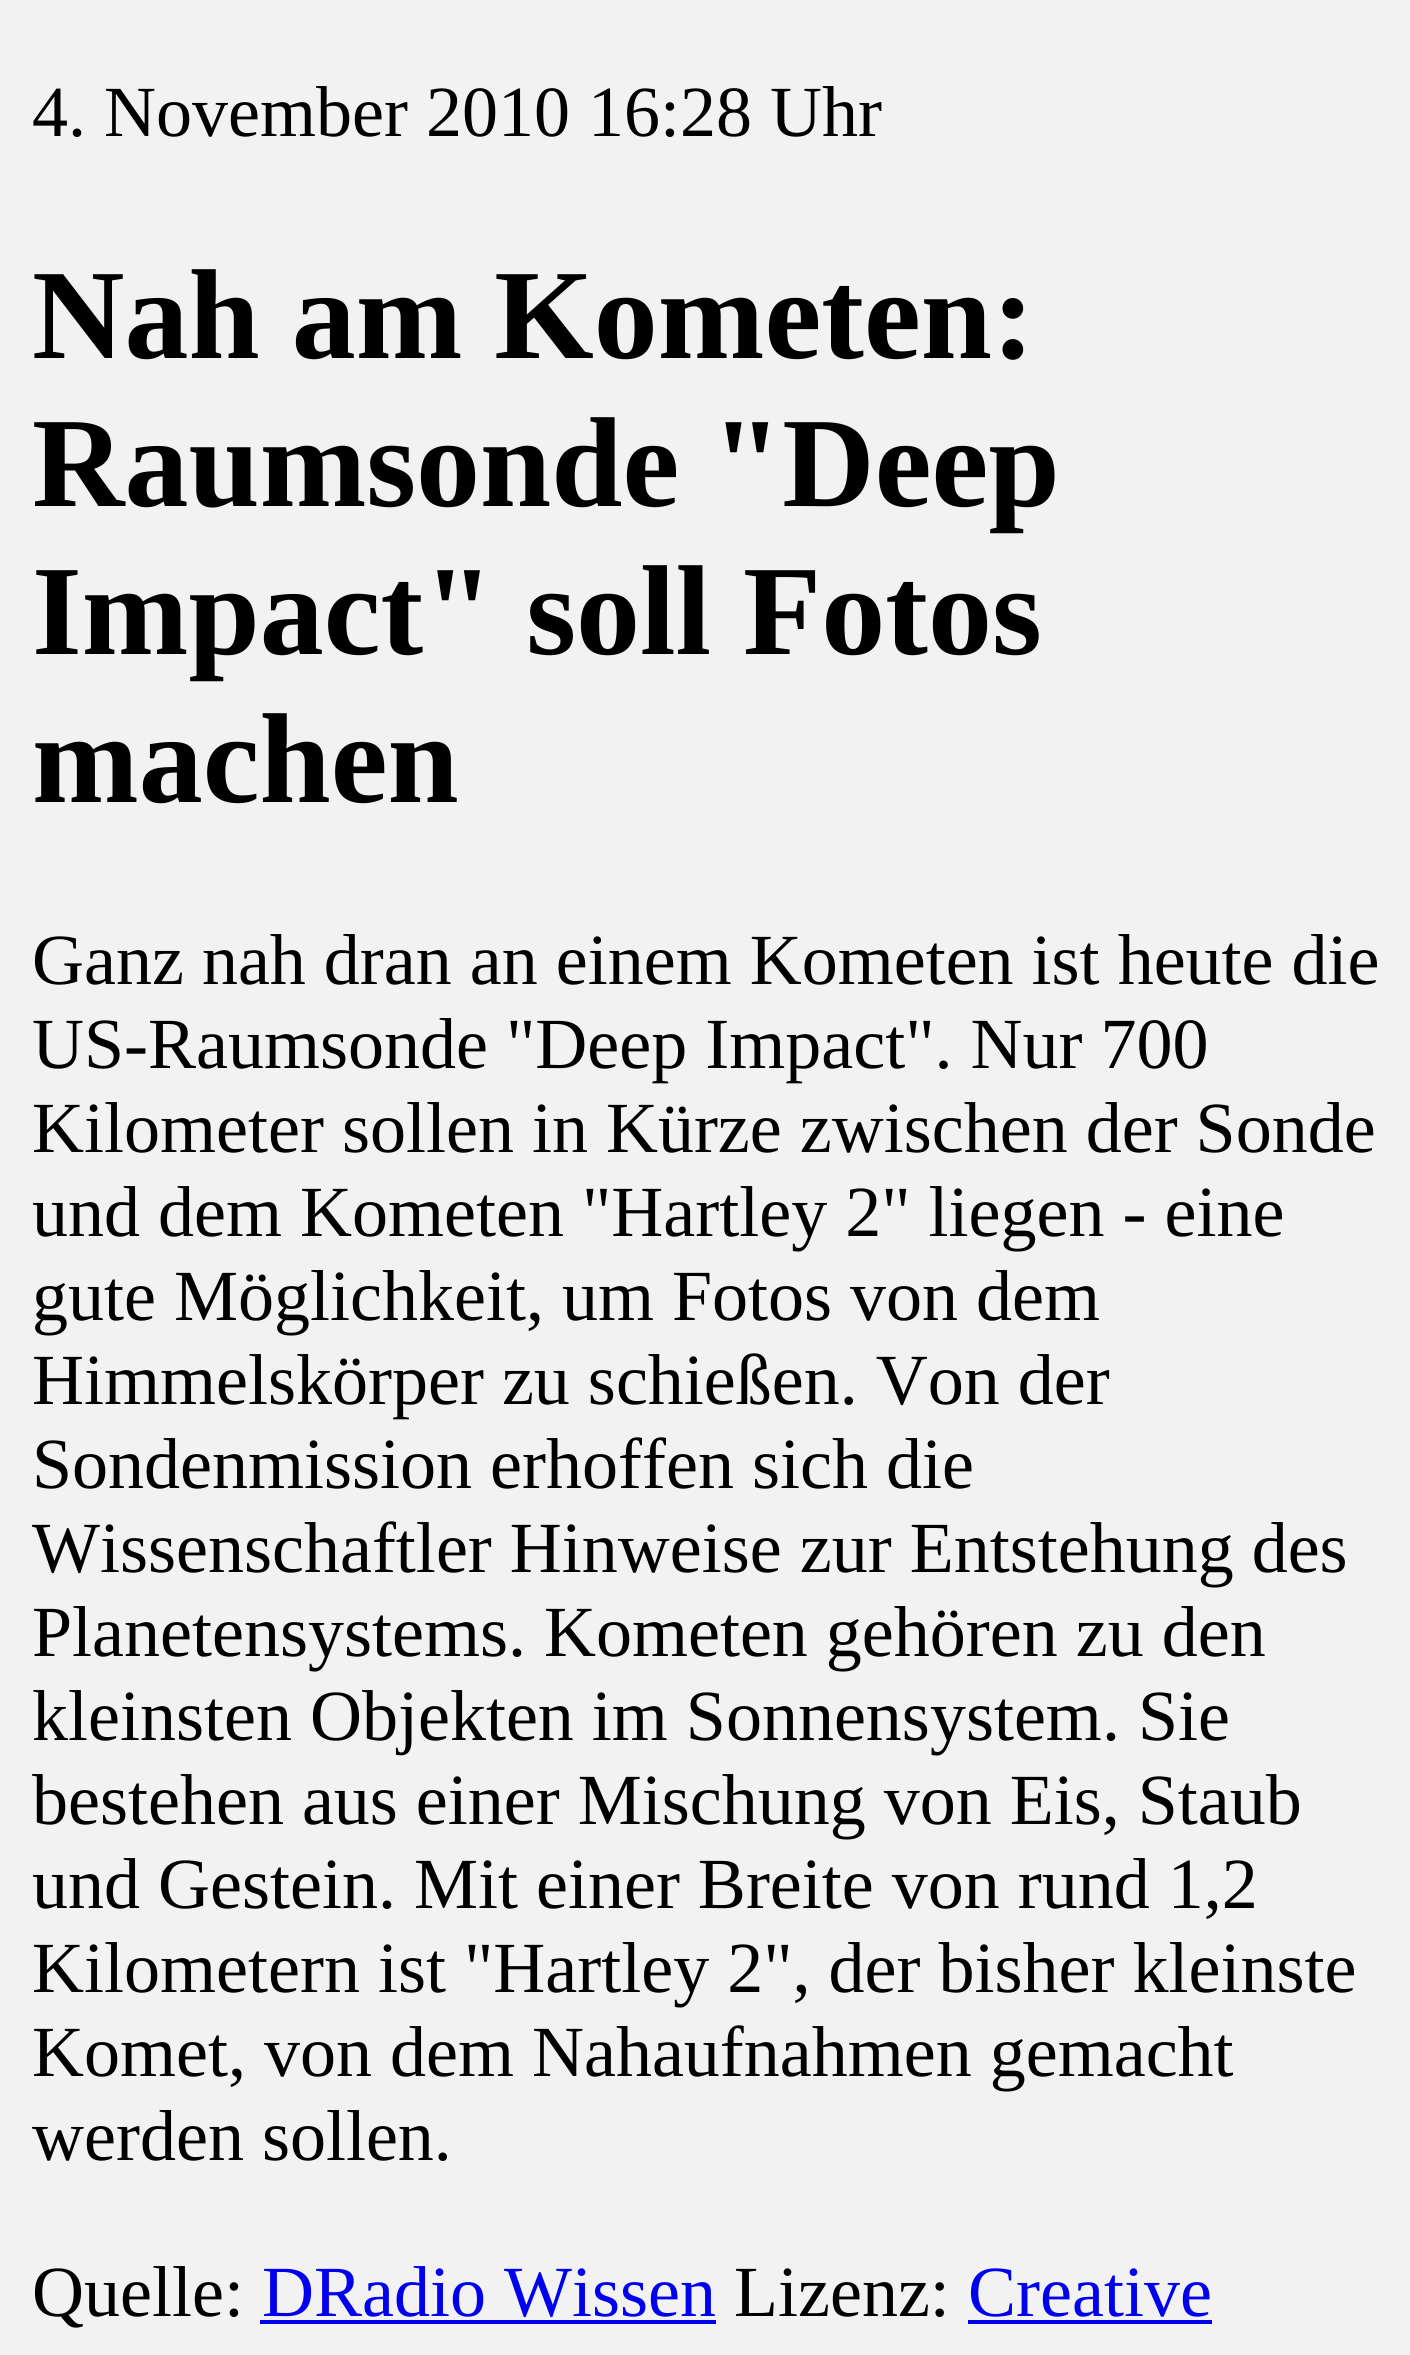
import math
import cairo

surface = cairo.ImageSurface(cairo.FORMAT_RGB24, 1410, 2355)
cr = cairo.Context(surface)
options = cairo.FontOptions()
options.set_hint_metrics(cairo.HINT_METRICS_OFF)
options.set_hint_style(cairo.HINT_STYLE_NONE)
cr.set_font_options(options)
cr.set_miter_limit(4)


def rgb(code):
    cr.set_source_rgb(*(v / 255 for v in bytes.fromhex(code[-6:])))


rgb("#f2f2f2")
cr.paint()
rgb("#0000ee")
cr.rectangle(260, 2320, 456, 4)
cr.fill()
cr.rectangle(968, 2320, 244, 4)
cr.fill()
cr.select_font_face("Liberation Serif")
cr.set_font_size(72)
rgb("#000000")
cr.move_to(32, 136)
cr.show_text("4. November 2010 16:28 Uhr")
cr.select_font_face("Liberation Serif", cairo.FONT_SLANT_NORMAL, cairo.FONT_WEIGHT_BOLD)
cr.set_font_size(128)
for x, y, s in [
    (32, 358, "Nah am Kometen:"),
    (32, 506, "Raumsonde \"Deep"),
    (32, 654, "Impact\" soll Fotos"),
    (32, 802, "machen"),
]:
    cr.move_to(x, y)
    cr.show_text(s)
cr.select_font_face("Liberation Serif")
cr.set_font_size(72)
for x, y, s in [
    (32, 984, "Ganz nah dran an einem Kometen ist heute die"),
    (32, 1068, "US-Raumsonde \"Deep Impact\". Nur 700"),
    (32, 1152, "Kilometer sollen in Kürze zwischen der Sonde"),
    (32, 1236, "und dem Kometen \"Hartley 2\" liegen - eine"),
    (32, 1320, "gute Möglichkeit, um Fotos von dem"),
    (32, 1404, "Himmelskörper zu schießen. Von der"),
    (32, 1488, "Sondenmission erhoffen sich die"),
    (32, 1572, "Wissenschaftler Hinweise zur Entstehung des"),
    (32, 1656, "Planetensystems. Kometen gehören zu den"),
    (32, 1740, "kleinsten Objekten im Sonnensystem. Sie"),
    (32, 1824, "bestehen aus einer Mischung von Eis, Staub"),
    (32, 1908, "und Gestein. Mit einer Breite von rund 1,2"),
    (32, 1992, "Kilometern ist \"Hartley 2\", der bisher kleinste"),
    (32, 2076, "Komet, von dem Nahaufnahmen gemacht"),
    (32, 2160, "werden sollen."),
    (32, 2316, "Quelle:"),
]:
    cr.move_to(x, y)
    cr.show_text(s)
rgb("#0000ee")
cr.move_to(262, 2316)
cr.show_text("DRadio Wissen")
rgb("#000000")
cr.move_to(734, 2316)
cr.show_text("Lizenz:")
rgb("#0000ee")
cr.move_to(968, 2316)
cr.show_text("Creative")
surface.write_to_png("page.png")
